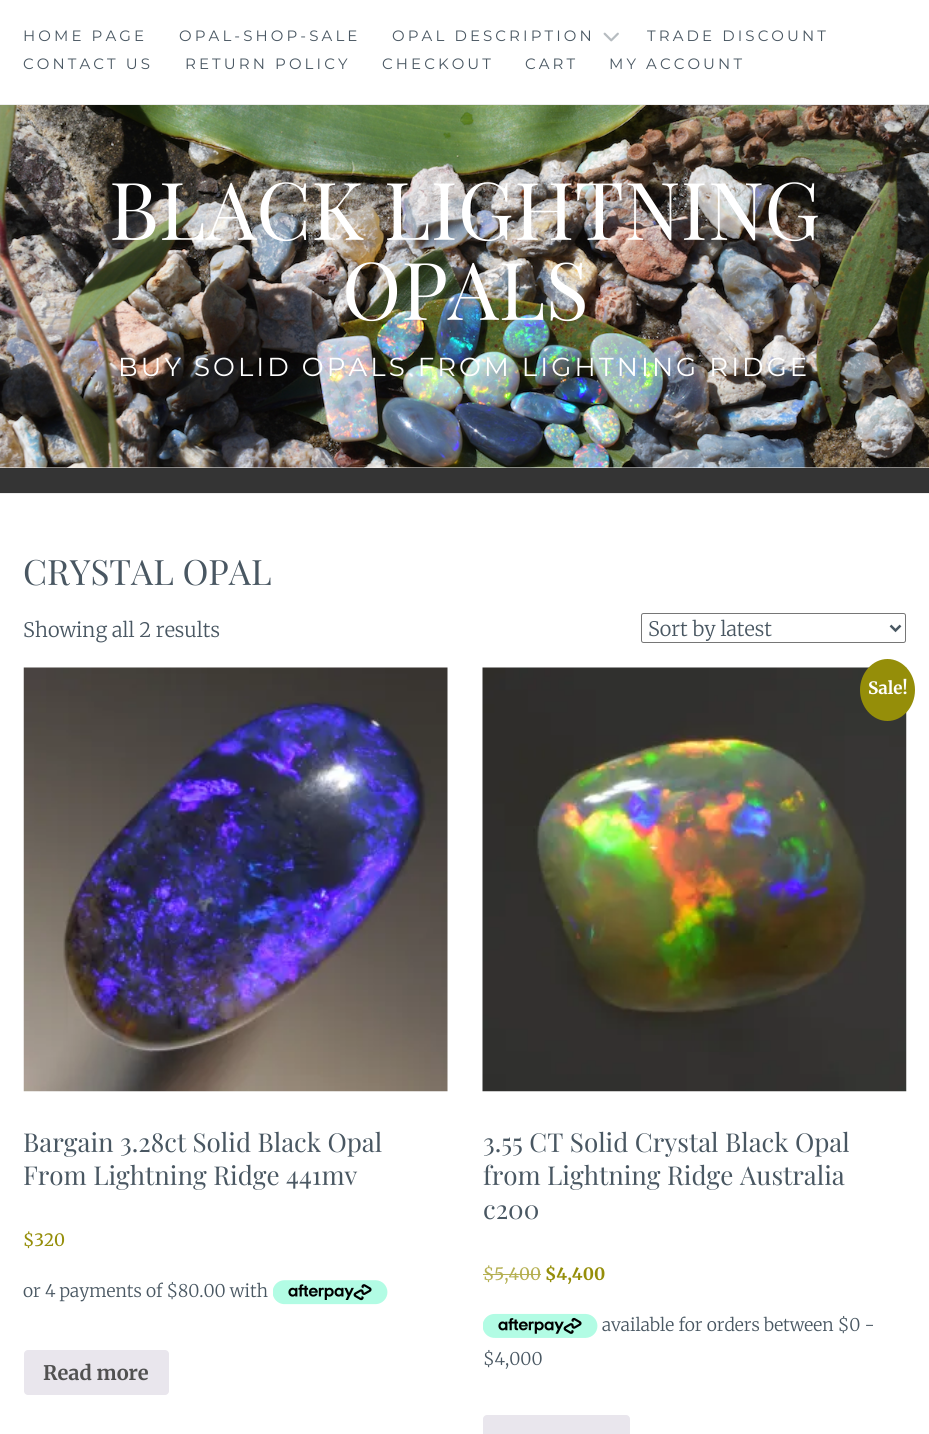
import math
import cairo

surface = cairo.ImageSurface(cairo.FORMAT_RGB24, 929, 1434)
cr = cairo.Context(surface)
options = cairo.FontOptions()
options.set_hint_metrics(cairo.HINT_METRICS_OFF)
options.set_hint_style(cairo.HINT_STYLE_NONE)
cr.set_font_options(options)
cr.set_miter_limit(4)


def rgb(code):
    cr.set_source_rgb(*(v / 255 for v in bytes.fromhex(code[-6:])))


def tracked(x, y, s, letter, word):
    cr.move_to(x, y)
    for ch in s:
        cr.show_text(ch)
        cr.rel_move_to(letter + word * (ch == ' '), 0)


def rrect(x, y, w, h, r):
    cr.new_sub_path()
    for i, (u, v) in enumerate([(x + w - r, y + h - r), (x + r, y + h - r), (x + r, y + r), (x + w - r, y + r)]):
        cr.arc(u, v, r, i * math.pi / 2, (i + 1) * math.pi / 2)
    cr.close_path()


def image(path, x, y, w, h):
    cr.save()
    cr.set_source_surface(cairo.ImageSurface.create_from_png(path), x, y)
    cr.rectangle(x, y, w, h)
    cr.fill()
    cr.restore()


rgb("#ffffff")
cr.paint()
rgb("#eeeeee")
cr.rectangle(0, 104, 929, 1)
cr.fill()
image("img/1.png", 603, 32, 16, 10)
rgb("#343434")
cr.rectangle(0, 468, 929, 25)
cr.fill()
image("img/2.png", 0, 105, 929, 363)
rgb("#eeeeee")
cr.rectangle(0, 493, 929, 1)
cr.fill()
rrect(641.5, 613.5, 264, 29, 2)
rgb("#767676")
cr.set_line_width(1)
cr.stroke()
cr.new_path()
cr.move_to(890.5, 625.5)
cr.line_to(895.5, 630.5)
cr.line_to(900.5, 625.5)
rgb("#495762")
cr.set_line_width(2.5)
cr.stroke()
image("img/3.png", 23, 667, 425, 425)
image("img/4.png", 273, 1280, 115, 25)
rgb("#e9e6ed")
rrect(24, 1350, 145, 45, 4)
cr.fill()
image("img/5.png", 482, 667, 425, 425)
rgb("#958e09")
cr.new_path()
cr.move_to(887.5, 659)
cr.curve_to(902.5, 659, 915, 673, 915, 690)
cr.curve_to(915, 707, 902.5, 721, 887.5, 721)
cr.curve_to(872.5, 721, 860, 707, 860, 690)
cr.curve_to(860, 673, 872.5, 659, 887.5, 659)
cr.close_path()
cr.fill()
rgb("#b5b053")
cr.rectangle(483, 1274, 58, 1)
cr.fill()
image("img/6.png", 483, 1313, 115, 25)
rgb("#e9e6ed")
rrect(483, 1415, 147, 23, 4)
cr.fill()
cr.select_font_face("Montserrat")
cr.set_font_size(15)
rgb("#495762")
for x, y, s in [
    (23, 41, "HOME PAGE"),
    (179, 41, "OPAL-SHOP-SALE"),
    (392, 41, "OPAL DESCRIPTION"),
    (647, 41, "TRADE DISCOUNT"),
    (23, 69, "CONTACT US"),
    (185, 69, "RETURN POLICY"),
    (382, 69, "CHECKOUT"),
    (525, 69, "CART"),
    (609, 69, "MY ACCOUNT"),
]:
    tracked(x, y, s, 3.1, 0)
cr.select_font_face("Playfair Display")
cr.set_font_size(80)
rgb("#ffffff")
cr.move_to(109, 240)
cr.show_text("BLACK LIGHTNING")
cr.move_to(342, 320)
cr.show_text("OPALS")
cr.select_font_face("Montserrat")
cr.set_font_size(26)
tracked(118, 376, "BUY SOLID OPALS FROM LIGHTNING RIDGE", 3.1, 0)
cr.select_font_face("Playfair Display")
cr.set_font_size(35)
rgb("#495762")
cr.move_to(23, 585)
cr.show_text("CRYSTAL OPAL")
cr.select_font_face("Merriweather Light")
cr.set_font_size(20)
cr.move_to(23, 637)
cr.show_text("Showing all 2 results")
cr.move_to(648, 636)
cr.show_text("Sort by latest")
cr.select_font_face("Playfair Display")
cr.set_font_size(26)
cr.move_to(23, 1152)
cr.show_text("Bargain 3.28ct Solid Black Opal")
cr.move_to(23, 1185)
cr.show_text("From Lightning Ridge 441mv")
cr.select_font_face("Merriweather")
cr.set_font_size(17)
rgb("#958e09")
cr.move_to(23, 1246)
cr.show_text("$320")
cr.select_font_face("Merriweather Light")
cr.set_font_size(17.5)
rgb("#495762")
cr.move_to(23, 1297)
cr.show_text("or 4 payments of $80.00 with")
cr.select_font_face("Merriweather", cairo.FONT_SLANT_NORMAL, cairo.FONT_WEIGHT_BOLD)
cr.set_font_size(20)
rgb("#515151")
cr.move_to(43, 1380)
cr.show_text("Read more")
cr.set_font_size(17)
rgb("#ffffff")
cr.move_to(868, 694)
cr.show_text("Sale!")
cr.select_font_face("Playfair Display")
cr.set_font_size(26)
rgb("#495762")
for x, y, s in [
    (483, 1152, "3.55 CT Solid Crystal Black Opal"),
    (483, 1185, "from Lightning Ridge Australia"),
    (483, 1219, "c200"),
]:
    cr.move_to(x, y)
    cr.show_text(s)
cr.select_font_face("Merriweather")
cr.set_font_size(17)
rgb("#b5b053")
cr.move_to(483, 1280)
cr.show_text("$5,400")
cr.select_font_face("Merriweather", cairo.FONT_SLANT_NORMAL, cairo.FONT_WEIGHT_BOLD)
rgb("#958e09")
cr.move_to(545, 1280)
cr.show_text("$4,400")
cr.select_font_face("Merriweather Light")
cr.set_font_size(17.5)
rgb("#495762")
cr.move_to(602, 1331)
cr.show_text("available for orders between $0 -")
cr.move_to(483, 1365)
cr.show_text("$4,000")
surface.write_to_png("page.png")
